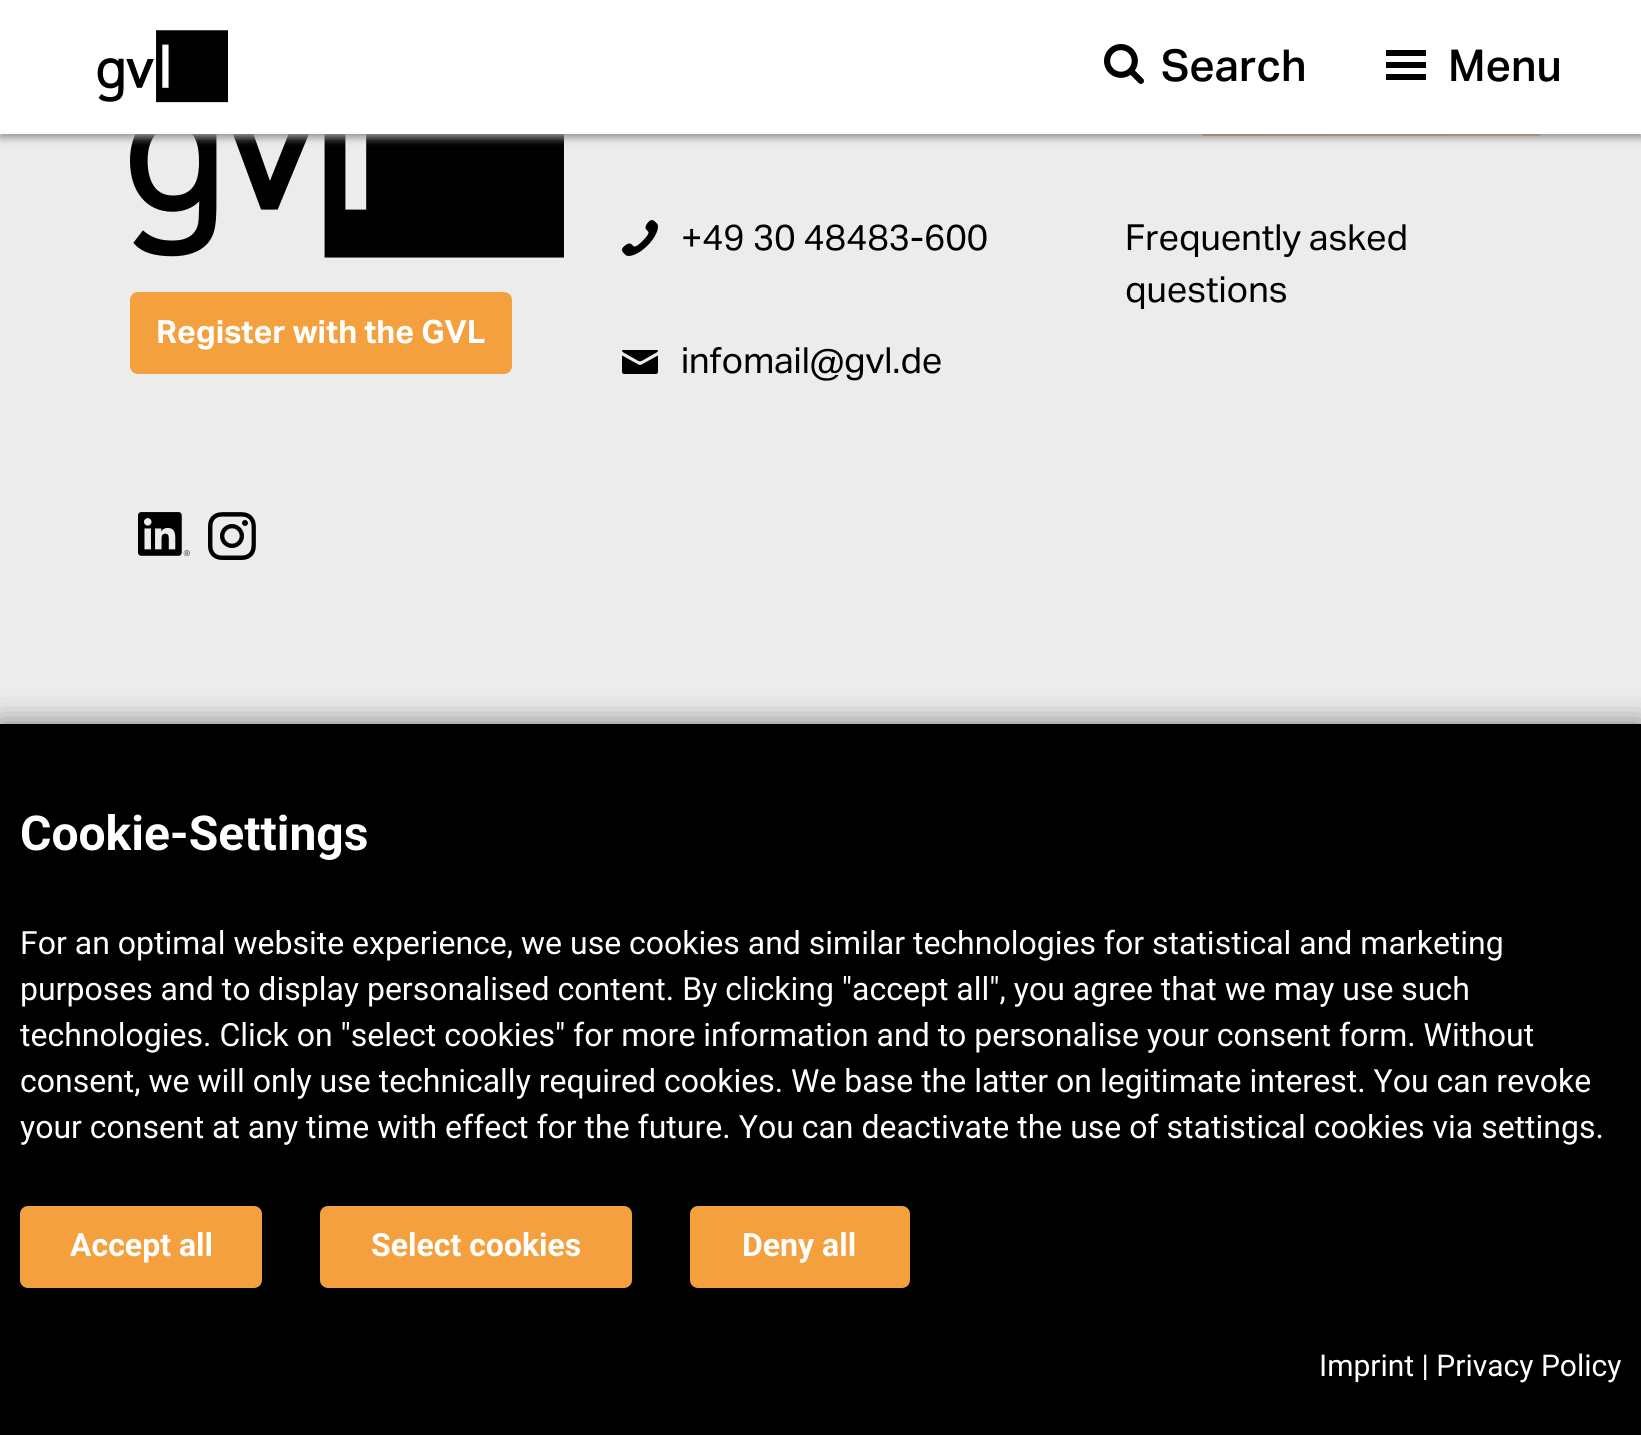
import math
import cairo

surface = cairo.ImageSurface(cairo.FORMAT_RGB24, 1641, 1435)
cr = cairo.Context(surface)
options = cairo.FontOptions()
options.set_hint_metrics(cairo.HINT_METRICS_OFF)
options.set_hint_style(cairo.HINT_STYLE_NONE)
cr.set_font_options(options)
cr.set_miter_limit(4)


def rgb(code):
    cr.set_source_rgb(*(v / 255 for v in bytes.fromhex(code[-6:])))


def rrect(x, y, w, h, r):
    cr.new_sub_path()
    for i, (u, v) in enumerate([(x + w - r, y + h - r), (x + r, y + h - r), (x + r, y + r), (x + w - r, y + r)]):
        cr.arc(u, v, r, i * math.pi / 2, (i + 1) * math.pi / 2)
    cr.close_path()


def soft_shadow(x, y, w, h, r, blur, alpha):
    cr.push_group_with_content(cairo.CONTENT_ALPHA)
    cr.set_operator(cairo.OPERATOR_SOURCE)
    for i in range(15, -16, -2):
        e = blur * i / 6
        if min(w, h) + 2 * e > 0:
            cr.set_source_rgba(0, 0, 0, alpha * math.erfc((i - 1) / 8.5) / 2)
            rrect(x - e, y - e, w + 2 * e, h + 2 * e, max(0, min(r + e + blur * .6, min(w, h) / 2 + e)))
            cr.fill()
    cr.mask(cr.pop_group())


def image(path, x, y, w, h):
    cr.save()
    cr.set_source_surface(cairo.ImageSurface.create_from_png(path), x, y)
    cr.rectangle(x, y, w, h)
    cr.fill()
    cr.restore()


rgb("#ececec")
cr.paint()
image("img/3.png", 1202, 134, 338, 2)
image("img/4.png", 130, 134, 434, 124)
rgb("#979797")
soft_shadow(0, 4, 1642, 134, 0, 4, 1)
rgb("#ffffff")
cr.rectangle(0, 0, 1641, 134)
cr.fill()
image("img/1.png", 97, 30, 131, 73)
image("img/2.png", 1104, 44, 40, 40)
for x, y, w, h, color in [
    (1386, 62, 40, 6, "#000000"),
    (1386, 50, 40, 6, "#000000"),
    (1386, 74, 40, 6, "#000000"),
]:
    rgb(color)
    cr.rectangle(x, y, w, h)
    cr.fill()
rgb("#f5a03e")
rrect(130, 292, 382, 82, 8)
cr.fill()
image("img/5.png", 622, 220, 36, 36)
image("img/6.png", 622, 350, 36, 24)
image("img/7.png", 138, 512, 52, 45)
image("img/8.png", 208, 512, 48, 48)
rgb("#000000")
soft_shadow(0, 724, 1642, 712, 0, 15, 0.5)
rgb("#000000")
cr.rectangle(0, 724, 1641, 711)
cr.fill()
rgb("#f5a03e")
rrect(20, 1206, 242, 82, 8)
cr.fill()
rrect(320, 1206, 312, 82, 8)
cr.fill()
rrect(690, 1206, 220, 82, 8)
cr.fill()
cr.select_font_face("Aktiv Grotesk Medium")
cr.set_font_size(44)
rgb("#000000")
cr.move_to(1161, 81)
cr.show_text("Search")
cr.move_to(1448, 81)
cr.show_text("Menu")
cr.select_font_face("Aktiv Grotesk", cairo.FONT_SLANT_NORMAL, cairo.FONT_WEIGHT_BOLD)
cr.set_font_size(32)
rgb("#ffffff")
cr.move_to(156, 343)
cr.show_text("Register with the GVL")
cr.select_font_face("Aktiv Grotesk")
cr.set_font_size(36)
rgb("#000000")
for x, y, s in [
    (681, 250, "+49 30 48483-600"),
    (1125, 250, "Frequently asked"),
    (1125, 302, "questions"),
    (681, 373, "infomail@gvl.de"),
]:
    cr.move_to(x, y)
    cr.show_text(s)
cr.select_font_face("Roboto", cairo.FONT_SLANT_NORMAL, cairo.FONT_WEIGHT_BOLD)
cr.set_font_size(48)
rgb("#ffffff")
cr.move_to(20, 850)
cr.show_text("Cookie-Settings")
cr.select_font_face("Roboto")
cr.set_font_size(32)
for x, y, s in [
    (20, 954, "For an optimal website experience, we use cookies and similar technologies for statistical and marketing"),
    (20, 1000, "purposes and to display personalised content. By clicking \"accept all\", you agree that we may use such"),
    (20, 1046, "technologies. Click on \"select cookies\" for more information and to personalise your consent form. Without"),
    (20, 1092, "consent, we will only use technically required cookies. We base the latter on legitimate interest. You can revoke"),
    (20, 1138, "your consent at any time with effect for the future. You can deactivate the use of statistical cookies via settings."),
]:
    cr.move_to(x, y)
    cr.show_text(s)
cr.select_font_face("Roboto", cairo.FONT_SLANT_NORMAL, cairo.FONT_WEIGHT_BOLD)
for x, y, s in [
    (70, 1256, "Accept all"),
    (371, 1256, "Select cookies"),
    (742, 1256, "Deny all"),
]:
    cr.move_to(x, y)
    cr.show_text(s)
cr.select_font_face("Roboto")
cr.set_font_size(30)
cr.move_to(1319, 1376)
cr.show_text("Imprint | Privacy Policy")
surface.write_to_png("page.png")
